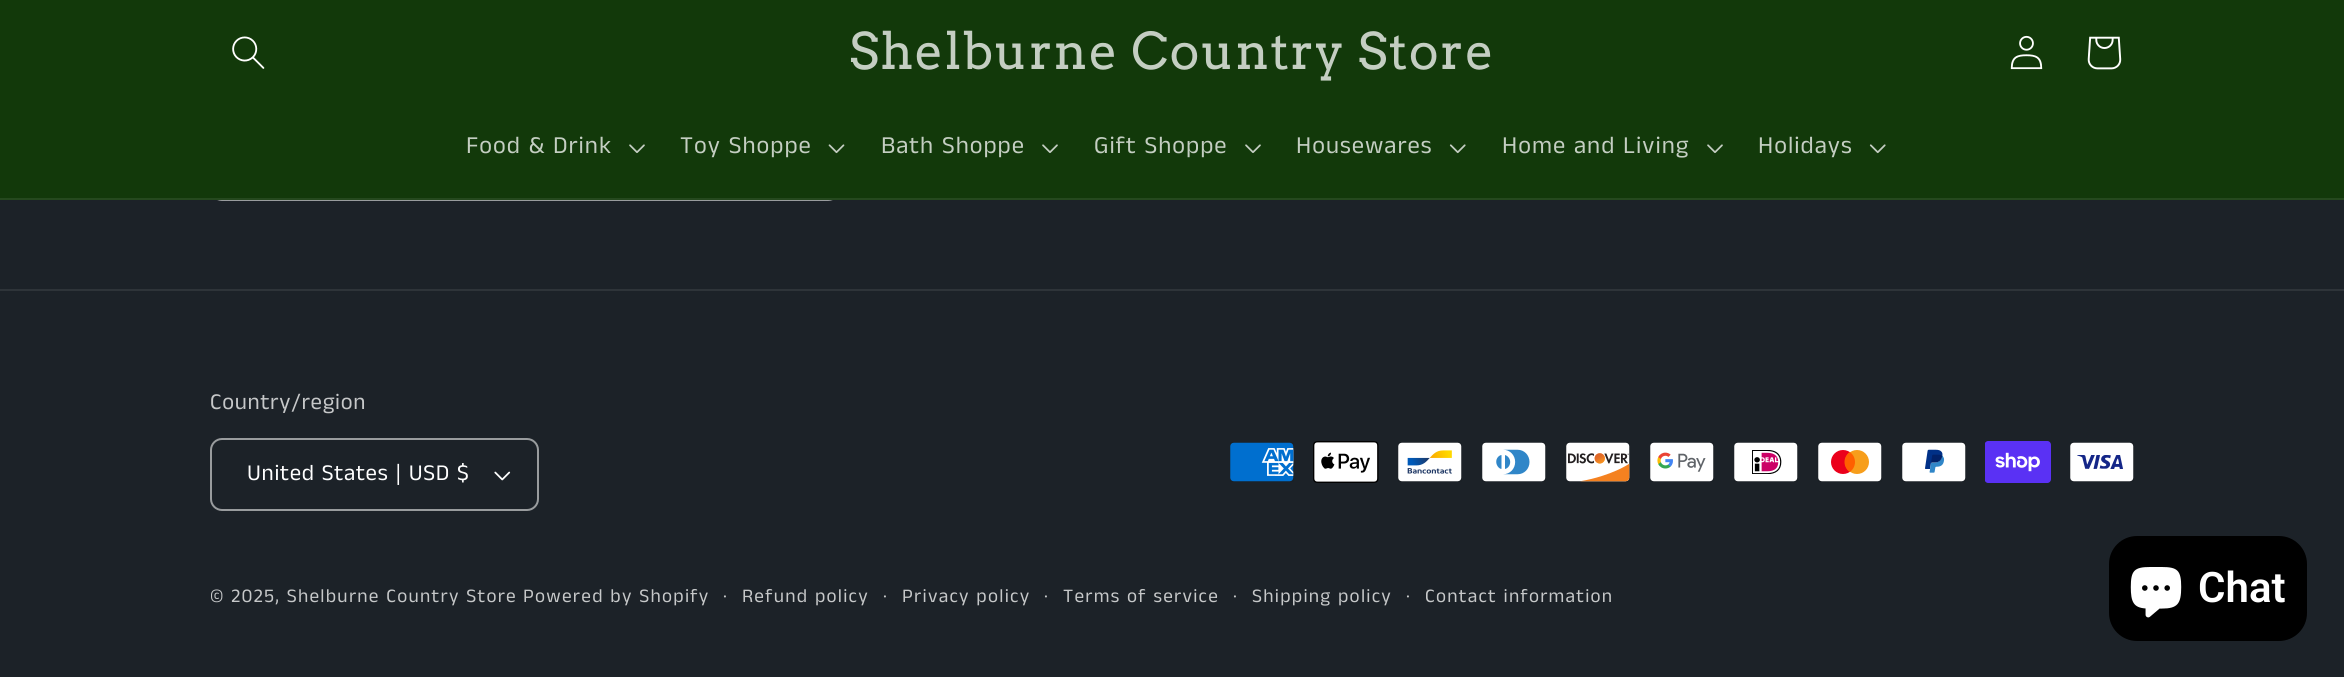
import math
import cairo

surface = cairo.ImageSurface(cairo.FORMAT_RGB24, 2344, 677)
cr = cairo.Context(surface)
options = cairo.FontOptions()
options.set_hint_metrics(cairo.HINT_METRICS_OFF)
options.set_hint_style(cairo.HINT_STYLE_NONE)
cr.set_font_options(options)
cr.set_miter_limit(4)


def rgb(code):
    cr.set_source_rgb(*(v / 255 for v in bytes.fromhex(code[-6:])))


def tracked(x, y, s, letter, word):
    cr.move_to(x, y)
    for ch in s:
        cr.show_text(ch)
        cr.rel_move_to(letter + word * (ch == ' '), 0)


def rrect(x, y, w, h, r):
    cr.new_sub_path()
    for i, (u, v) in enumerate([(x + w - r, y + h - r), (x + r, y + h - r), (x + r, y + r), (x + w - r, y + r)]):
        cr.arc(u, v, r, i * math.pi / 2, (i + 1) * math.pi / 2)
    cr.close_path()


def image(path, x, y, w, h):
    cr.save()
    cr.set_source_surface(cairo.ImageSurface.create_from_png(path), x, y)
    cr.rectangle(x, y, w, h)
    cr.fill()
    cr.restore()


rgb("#1c2228")
cr.paint()
rrect(211, 120, 628, 80, 11)
rgb("#999c9e")
cr.stroke()
rgb("#12390a")
cr.rectangle(0, 0, 2344, 198)
cr.fill()
rgb("#25491e")
cr.rectangle(0, 198, 2344, 2)
cr.fill()
image("img/1.png", 232, 36, 33, 33)
image("img/2.png", 2010, 35, 33, 35)
image("img/3.png", 2087, 36, 35, 34)
image("img/4.png", 629, 144, 16, 9)
image("img/5.png", 828, 144, 17, 10)
image("img/4.png", 1042, 144, 16, 9)
image("img/4.png", 1245, 144, 16, 9)
image("img/6.png", 1449, 144, 17, 10)
image("img/4.png", 1707, 144, 16, 9)
image("img/6.png", 1869, 144, 17, 10)
rgb("#2e3439")
cr.rectangle(0, 289, 2344, 2)
cr.fill()
image("img/7.png", 494, 471, 17, 10)
rrect(211, 439, 327, 71, 11)
rgb("#999c9e")
cr.stroke()
image("img/8.png", 1230, 442, 64, 40)
image("img/9.png", 1313, 441, 66, 42)
image("img/10.png", 1398, 442, 64, 40)
image("img/11.png", 1482, 442, 64, 40)
image("img/12.png", 1566, 442, 64, 40)
image("img/13.png", 1650, 442, 64, 40)
image("img/14.png", 1734, 442, 64, 40)
image("img/15.png", 1818, 442, 64, 40)
image("img/16.png", 1902, 442, 64, 40)
image("img/17.png", 1985, 441, 66, 42)
image("img/18.png", 2070, 442, 64, 40)
rgb("#000000")
rrect(2109, 536, 198, 105, 28)
cr.fill()
image("img/19.png", 2130, 567, 52, 51)
cr.select_font_face("Arvo")
cr.set_font_size(50.4)
rgb("#c4cec2")
tracked(849, 69, "Shelburne Country Store", 1.25, 0)
cr.select_font_face("Anek Tamil")
cr.set_font_size(24.5)
for x, y, s in [
    (466, 153, "Food & Drink"),
    (680, 153, "Toy Shoppe"),
    (881, 153, "Bath Shoppe"),
    (1094, 153, "Gift Shoppe"),
    (1296, 153, "Housewares"),
    (1502, 153, "Home and Living"),
    (1758, 153, "Holidays"),
]:
    tracked(x, y, s, 1, 0)
cr.set_font_size(22.75)
rgb("#c6c8c9")
tracked(210, 409, "Country/region", 0.7, 0)
rgb("#ffffff")
tracked(247, 480, "United States | USD $", 0.7, 0)
cr.set_font_size(19.25)
rgb("#c6c8c9")
tracked(210, 602, "© 2025, Shelburne Country Store", 1.25, 0)
tracked(523, 602, "Powered by Shopify", 1.25, 0)
cr.set_font_size(21)
tracked(723, 602, "·", 1.25, 0)
cr.set_font_size(19.25)
tracked(742, 602, "Refund policy", 1.25, 0)
cr.set_font_size(21)
tracked(883, 602, "·", 1.25, 0)
cr.set_font_size(19.25)
tracked(902, 602, "Privacy policy", 1.25, 0)
cr.set_font_size(21)
tracked(1044, 602, "·", 1.25, 0)
cr.set_font_size(19.25)
tracked(1063, 602, "Terms of service", 1.25, 0)
cr.set_font_size(21)
tracked(1233, 602, "·", 1.25, 0)
cr.set_font_size(19.25)
tracked(1252, 602, "Shipping policy", 1.25, 0)
cr.set_font_size(21)
tracked(1406, 602, "·", 1.25, 0)
cr.set_font_size(19.25)
tracked(1425, 602, "Contact information", 1.25, 0)
cr.select_font_face("Roboto SemiBold")
cr.set_font_size(42)
rgb("#ffffff")
cr.move_to(2198, 602)
cr.show_text("Chat")
surface.write_to_png("page.png")
